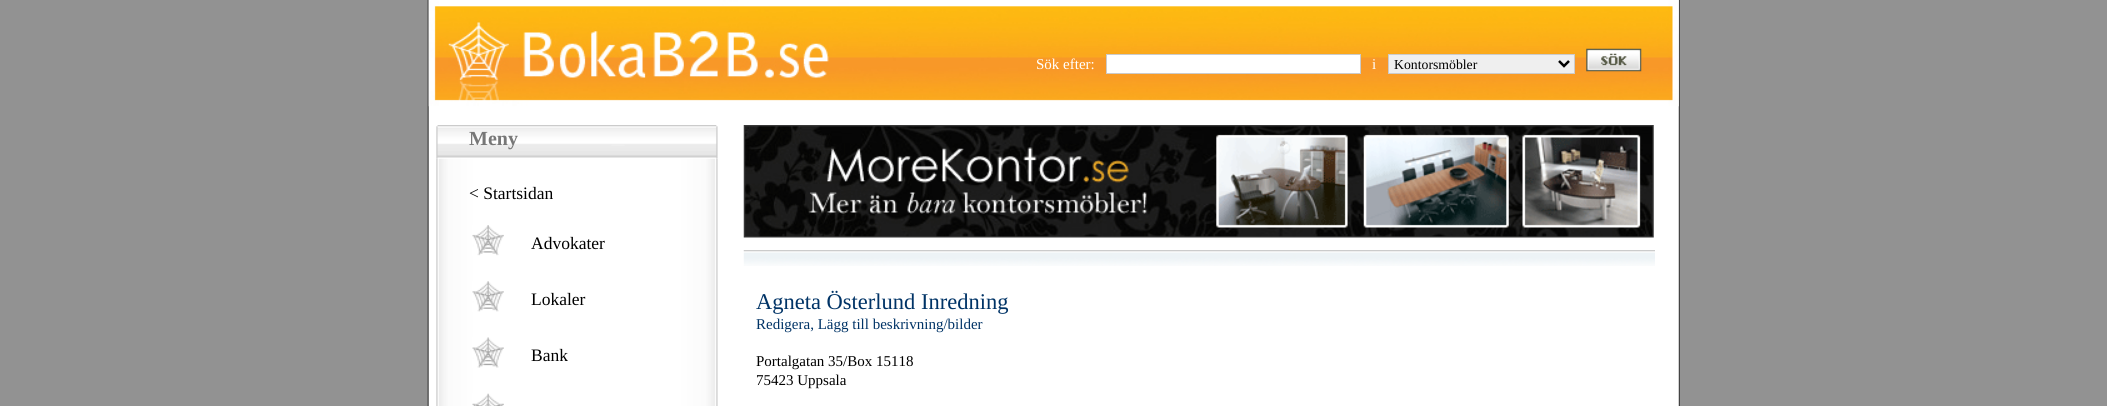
import math
import cairo

surface = cairo.ImageSurface(cairo.FORMAT_RGB24, 2107, 406)
cr = cairo.Context(surface)
options = cairo.FontOptions()
options.set_hint_metrics(cairo.HINT_METRICS_OFF)
options.set_hint_style(cairo.HINT_STYLE_NONE)
cr.set_font_options(options)
cr.set_miter_limit(4)


def rgb(code):
    cr.set_source_rgb(*(v / 255 for v in bytes.fromhex(code[-6:])))


def image(path, x, y, w, h):
    cr.save()
    cr.set_source_surface(cairo.ImageSurface.create_from_png(path), x, y)
    cr.rectangle(x, y, w, h)
    cr.fill()
    cr.restore()


rgb("#929292")
cr.paint()
image("img/1.png", 427, 0, 1253, 406)
image("img/2.png", 428, 0, 1251, 107)
rgb("#ffffff")
cr.rectangle(1106.5, 54.5, 254, 19)
cr.fill_preserve()
rgb("#cbcbcb")
cr.set_line_width(1)
cr.stroke()
rgb("#efefef")
cr.rectangle(1388.5, 54.5, 186, 19)
cr.fill_preserve()
rgb("#cbcbcb")
cr.stroke()
cr.new_path()
cr.move_to(1559, 61)
cr.line_to(1564, 66)
cr.line_to(1569, 61)
rgb("#000000")
cr.set_line_width(2.5)
cr.stroke()
image("img/3.png", 1586, 48, 56, 24)
image("img/4.png", 436, 125, 282, 34)
image("img/5.png", 436, 158, 282, 248)
image("img/6.png", 472, 225, 32, 31)
image("img/7.png", 472, 281, 32, 31)
image("img/8.png", 472, 337, 32, 31)
image("img/9.png", 472, 393, 32, 13)
image("img/10.png", 743, 125, 911, 113)
image("img/11.png", 743, 250, 912, 16)
cr.select_font_face("Liberation Serif")
cr.set_font_size(15)
rgb("#ffffff")
cr.move_to(1036, 69)
cr.show_text("Sök efter:")
cr.move_to(1372, 69)
cr.show_text("i")
cr.set_font_size(13.75)
rgb("#000000")
cr.move_to(1394, 69)
cr.show_text("Kontorsmöbler")
cr.select_font_face("Liberation Serif", cairo.FONT_SLANT_NORMAL, cairo.FONT_WEIGHT_BOLD)
cr.set_font_size(20)
rgb("#777777")
cr.move_to(469, 145)
cr.show_text("Meny")
cr.select_font_face("Liberation Serif")
cr.set_font_size(17.5)
rgb("#000000")
for x, y, s in [
    (469, 199, "< Startsidan"),
    (531, 249, "Advokater"),
    (531, 305, "Lokaler"),
    (531, 361, "Bank"),
]:
    cr.move_to(x, y)
    cr.show_text(s)
cr.set_font_size(22.5)
rgb("#003366")
cr.move_to(756, 309)
cr.show_text("Agneta Österlund Inredning")
cr.set_font_size(15)
cr.move_to(756, 329)
cr.show_text("Redigera, Lägg till beskrivning/bilder")
rgb("#000000")
cr.move_to(756, 366)
cr.show_text("Portalgatan 35/Box 15118")
cr.move_to(756, 385)
cr.show_text("75423 Uppsala")
surface.write_to_png("page.png")
